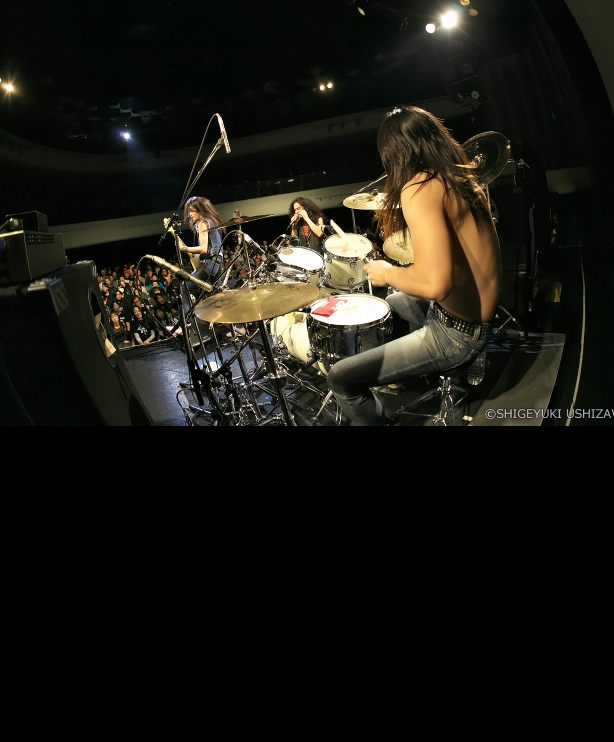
import math
import cairo

surface = cairo.ImageSurface(cairo.FORMAT_RGB24, 614, 742)
cr = cairo.Context(surface)
options = cairo.FontOptions()
options.set_hint_metrics(cairo.HINT_METRICS_OFF)
options.set_hint_style(cairo.HINT_STYLE_NONE)
cr.set_font_options(options)
cr.set_miter_limit(4)


def rgb(code):
    cr.set_source_rgb(*(v / 255 for v in bytes.fromhex(code[-6:])))


def image(path, x, y, w, h):
    cr.save()
    cr.set_source_surface(cairo.ImageSurface.create_from_png(path), x, y)
    cr.rectangle(x, y, w, h)
    cr.fill()
    cr.restore()


rgb("#000000")
cr.paint()
image("img/1.png", 0, 0, 614, 426)
surface.write_to_png("page.png")
